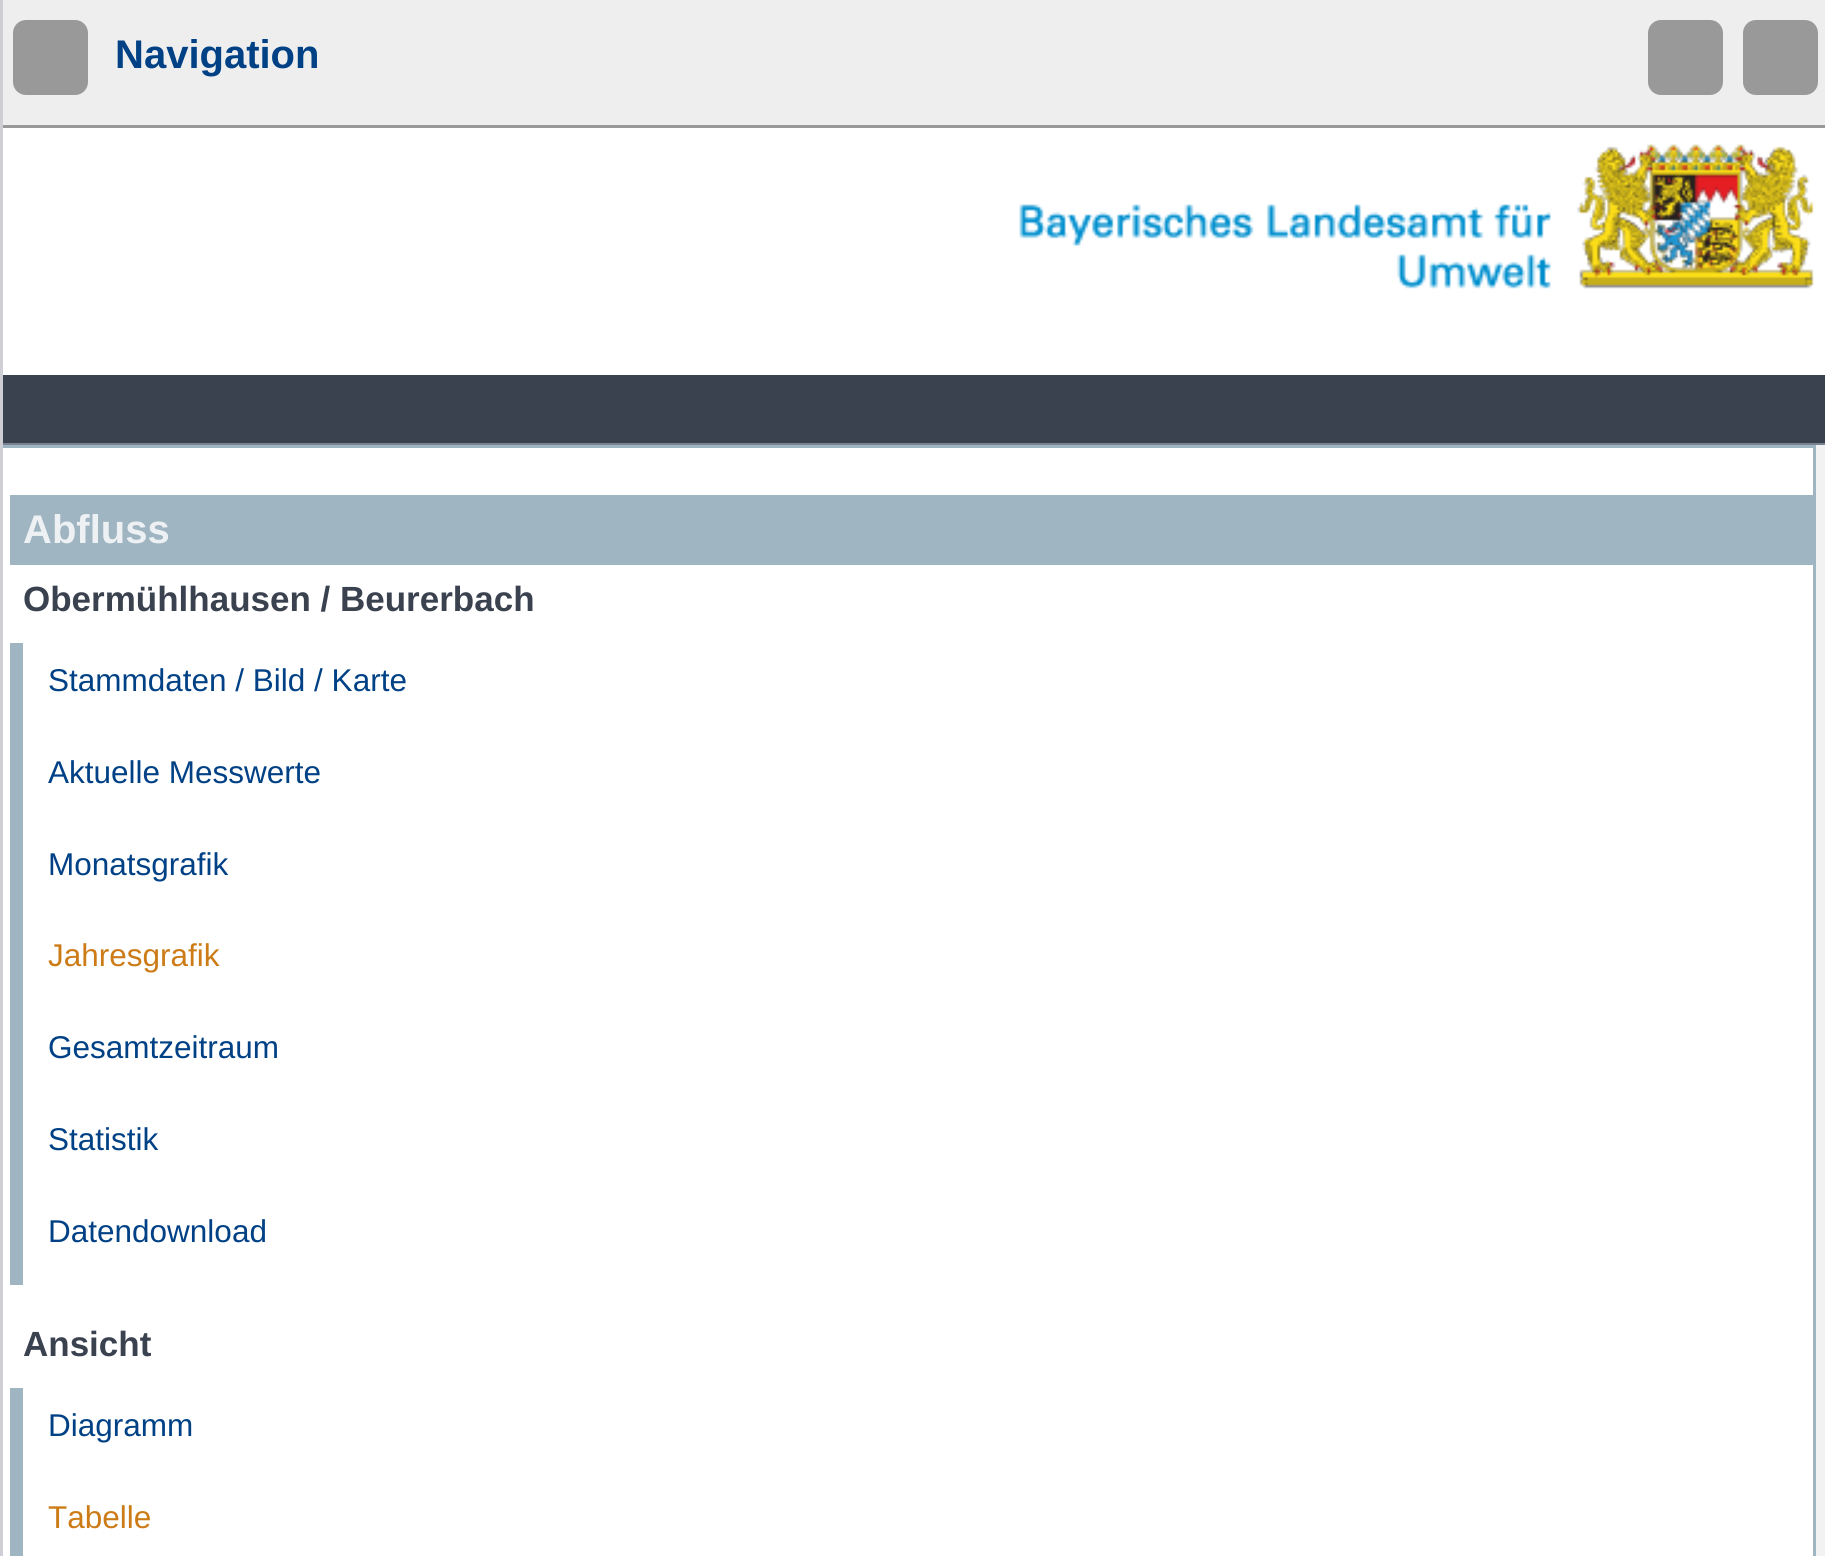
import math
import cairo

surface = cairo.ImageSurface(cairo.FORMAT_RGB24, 1825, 1556)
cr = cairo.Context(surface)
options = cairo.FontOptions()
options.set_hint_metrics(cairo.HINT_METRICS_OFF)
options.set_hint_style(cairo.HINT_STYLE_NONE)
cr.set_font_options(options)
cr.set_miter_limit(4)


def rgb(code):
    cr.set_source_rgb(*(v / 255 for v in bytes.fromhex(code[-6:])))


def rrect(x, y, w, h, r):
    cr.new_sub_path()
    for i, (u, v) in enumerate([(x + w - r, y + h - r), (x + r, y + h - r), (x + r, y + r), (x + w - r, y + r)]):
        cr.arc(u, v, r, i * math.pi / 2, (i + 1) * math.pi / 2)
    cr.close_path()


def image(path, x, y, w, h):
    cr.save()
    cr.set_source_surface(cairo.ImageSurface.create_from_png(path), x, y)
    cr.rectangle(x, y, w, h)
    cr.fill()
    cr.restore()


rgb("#ffffff")
cr.paint()
for x, y, w, h, color in [
    (0, 0, 3, 1556, "#cecfd4"),
    (3, 0, 1822, 125, "#eeeeee"),
    (3, 125, 1822, 3, "#999999"),
]:
    rgb(color)
    cr.rectangle(x, y, w, h)
    cr.fill()
rrect(13, 20, 75, 75, 13)
cr.fill()
rrect(1648, 20, 75, 75, 13)
cr.fill()
rrect(1743, 20, 75, 75, 13)
cr.fill()
image("img/1.png", 1019, 144, 795, 145)
for x, y, w, h, color in [
    (3, 375, 1822, 68, "#3b424f"),
    (3, 443, 1822, 2, "#7a8291"),
    (1816, 445, 9, 1111, "#f2f2f2"),
    (3, 445, 1812, 3, "#9fb5c1"),
    (1813, 445, 3, 1111, "#9fb5c1"),
    (10, 495, 1803, 70, "#9fb5c1"),
    (10, 643, 13, 642, "#9fb5c1"),
    (10, 1388, 13, 168, "#9fb5c1"),
]:
    rgb(color)
    cr.rectangle(x, y, w, h)
    cr.fill()
cr.select_font_face("Liberation Sans", cairo.FONT_SLANT_NORMAL, cairo.FONT_WEIGHT_BOLD)
cr.set_font_size(40)
rgb("#004185")
cr.move_to(115, 68)
cr.show_text("Navigation")
rgb("#edf1f3")
cr.move_to(23, 543)
cr.show_text("Abfluss")
cr.set_font_size(35)
rgb("#3b424f")
cr.move_to(23, 611)
cr.show_text("Obermühlhausen / Beurerbach")
cr.select_font_face("Liberation Sans")
cr.set_font_size(31.5)
rgb("#004185")
for x, y, s in [
    (48, 691, "Stammdaten / Bild / Karte"),
    (48, 783, "Aktuelle Messwerte"),
    (48, 875, "Monatsgrafik"),
]:
    cr.move_to(x, y)
    cr.show_text(s)
rgb("#cc7b17")
cr.move_to(48, 966)
cr.show_text("Jahresgrafik")
rgb("#004185")
for x, y, s in [
    (48, 1058, "Gesamtzeitraum"),
    (48, 1150, "Statistik"),
    (48, 1242, "Datendownload"),
]:
    cr.move_to(x, y)
    cr.show_text(s)
cr.select_font_face("Liberation Sans", cairo.FONT_SLANT_NORMAL, cairo.FONT_WEIGHT_BOLD)
cr.set_font_size(35)
rgb("#3b424f")
cr.move_to(23, 1356)
cr.show_text("Ansicht")
cr.select_font_face("Liberation Sans")
cr.set_font_size(31.5)
rgb("#004185")
cr.move_to(48, 1436)
cr.show_text("Diagramm")
rgb("#cc7b17")
cr.move_to(48, 1528)
cr.show_text("Tabelle")
surface.write_to_png("page.png")
